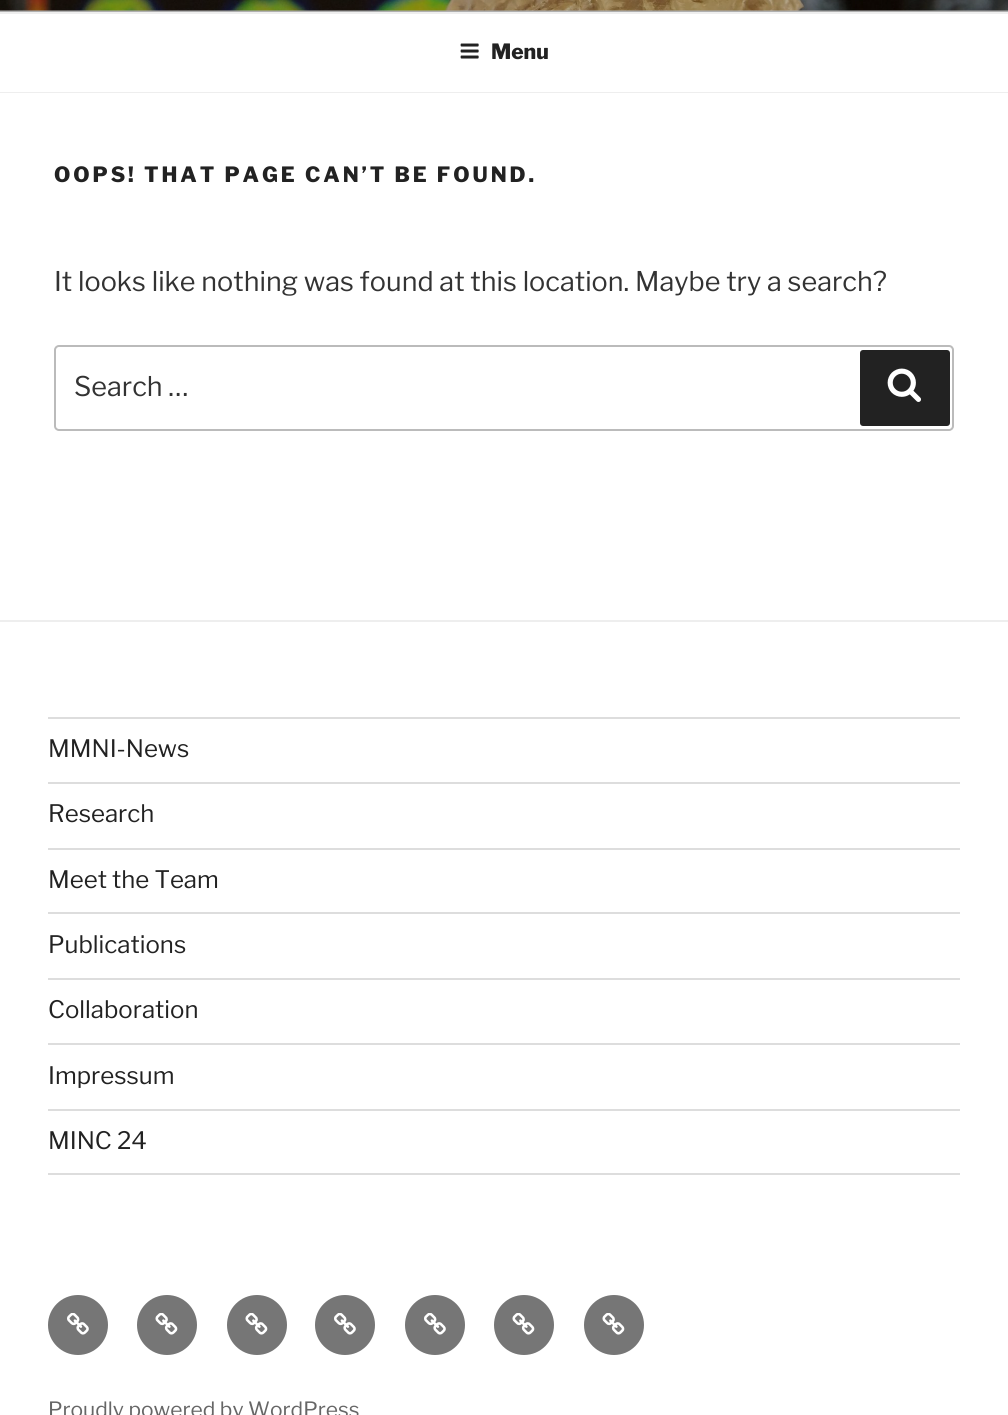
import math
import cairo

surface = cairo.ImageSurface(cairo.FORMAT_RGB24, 1008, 1415)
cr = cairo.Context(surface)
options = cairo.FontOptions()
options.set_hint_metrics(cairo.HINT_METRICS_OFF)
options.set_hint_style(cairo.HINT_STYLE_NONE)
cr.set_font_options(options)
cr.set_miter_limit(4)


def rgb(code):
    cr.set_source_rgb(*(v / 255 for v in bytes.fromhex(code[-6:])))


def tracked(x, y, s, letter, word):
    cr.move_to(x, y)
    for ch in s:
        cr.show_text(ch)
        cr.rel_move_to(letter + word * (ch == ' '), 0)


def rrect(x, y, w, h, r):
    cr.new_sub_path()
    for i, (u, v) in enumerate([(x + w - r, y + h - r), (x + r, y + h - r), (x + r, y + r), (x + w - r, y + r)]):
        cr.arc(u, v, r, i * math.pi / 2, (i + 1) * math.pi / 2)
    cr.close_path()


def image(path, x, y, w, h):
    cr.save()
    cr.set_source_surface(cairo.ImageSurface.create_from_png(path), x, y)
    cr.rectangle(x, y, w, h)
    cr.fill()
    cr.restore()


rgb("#fafafa")
cr.paint()
image("img/1.png", 0, 0, 1008, 11)
gradient = cairo.LinearGradient(504, -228, 504, 12)
gradient.add_color_stop_rgba(0, 0, 0, 0, 0)
gradient.add_color_stop_rgba(0.75, 0, 0, 0, 0.3)
gradient.add_color_stop_rgba(1, 0, 0, 0, 0.3)
cr.set_source(gradient)
cr.rectangle(0, 0, 1008, 12)
cr.fill()
for x, y, w, h, color in [
    (0, 14, 1008, 78, "#ffffff"),
    (0, 12, 1008, 2, "#eeeeee"),
    (0, 92, 1008, 1, "#eeeeee"),
]:
    rgb(color)
    cr.rectangle(x, y, w, h)
    cr.fill()
image("img/2.png", 460, 43, 19, 16)
rgb("#ffffff")
cr.rectangle(0, 93, 1008, 1322)
cr.fill()
rrect(55, 346, 898, 84, 4)
rgb("#bbbbbb")
cr.stroke()
rgb("#222222")
rrect(860, 350, 90, 76, 3)
cr.fill()
image("img/3.png", 887, 368, 34, 34)
for x, y, w, h, color in [
    (0, 620, 1008, 2, "#eeeeee"),
    (48, 717, 912, 2, "#dddddd"),
    (48, 782, 912, 2, "#dddddd"),
    (48, 848, 912, 2, "#dddddd"),
    (48, 912, 912, 2, "#dddddd"),
    (48, 978, 912, 2, "#dddddd"),
    (48, 1043, 912, 2, "#dddddd"),
    (48, 1109, 912, 2, "#dddddd"),
    (48, 1173, 912, 2, "#dddddd"),
]:
    rgb(color)
    cr.rectangle(x, y, w, h)
    cr.fill()
rgb("#767676")
cr.arc(78, 1325, 30, 0, 2 * math.pi)
cr.fill()
image("img/4.png", 67, 1313, 22, 22)
cr.arc(167, 1325, 30, 0, 2 * math.pi)
cr.fill()
image("img/5.png", 155, 1313, 23, 22)
cr.arc(257, 1325, 30, 0, 2 * math.pi)
cr.fill()
image("img/5.png", 245, 1313, 23, 22)
cr.arc(345, 1325, 30, 0, 2 * math.pi)
cr.fill()
image("img/4.png", 334, 1313, 22, 22)
cr.arc(435, 1325, 30, 0, 2 * math.pi)
cr.fill()
image("img/4.png", 424, 1313, 22, 22)
cr.arc(524, 1325, 30, 0, 2 * math.pi)
cr.fill()
image("img/5.png", 512, 1313, 23, 22)
cr.arc(614, 1325, 30, 0, 2 * math.pi)
cr.fill()
image("img/5.png", 602, 1313, 23, 22)
cr.select_font_face("Libre Franklin ExtraBold")
cr.set_font_size(21)
rgb("#222222")
cr.move_to(491, 59)
cr.show_text("Menu")
tracked(54, 182, "OOPS! THAT PAGE CAN’T BE FOUND.", 2.95, 0)
cr.select_font_face("Libre Franklin")
cr.set_font_size(27)
rgb("#333333")
cr.move_to(54, 291)
cr.show_text("It looks like nothing was found at this location. Maybe try a search?")
cr.move_to(74, 396)
cr.show_text("Search …")
cr.set_font_size(24)
rgb("#222222")
for x, y, s in [
    (48, 757, "MMNI-News"),
    (48, 822, "Research"),
    (48, 888, "Meet the Team"),
    (48, 953, "Publications"),
    (48, 1018, "Collaboration"),
    (48, 1084, "Impressum"),
    (48, 1149, "MINC 24"),
]:
    cr.move_to(x, y)
    cr.show_text(s)
cr.set_font_size(21)
rgb("#666666")
cr.move_to(48, 1417)
cr.show_text("Proudly powered by WordPress")
surface.write_to_png("page.png")
